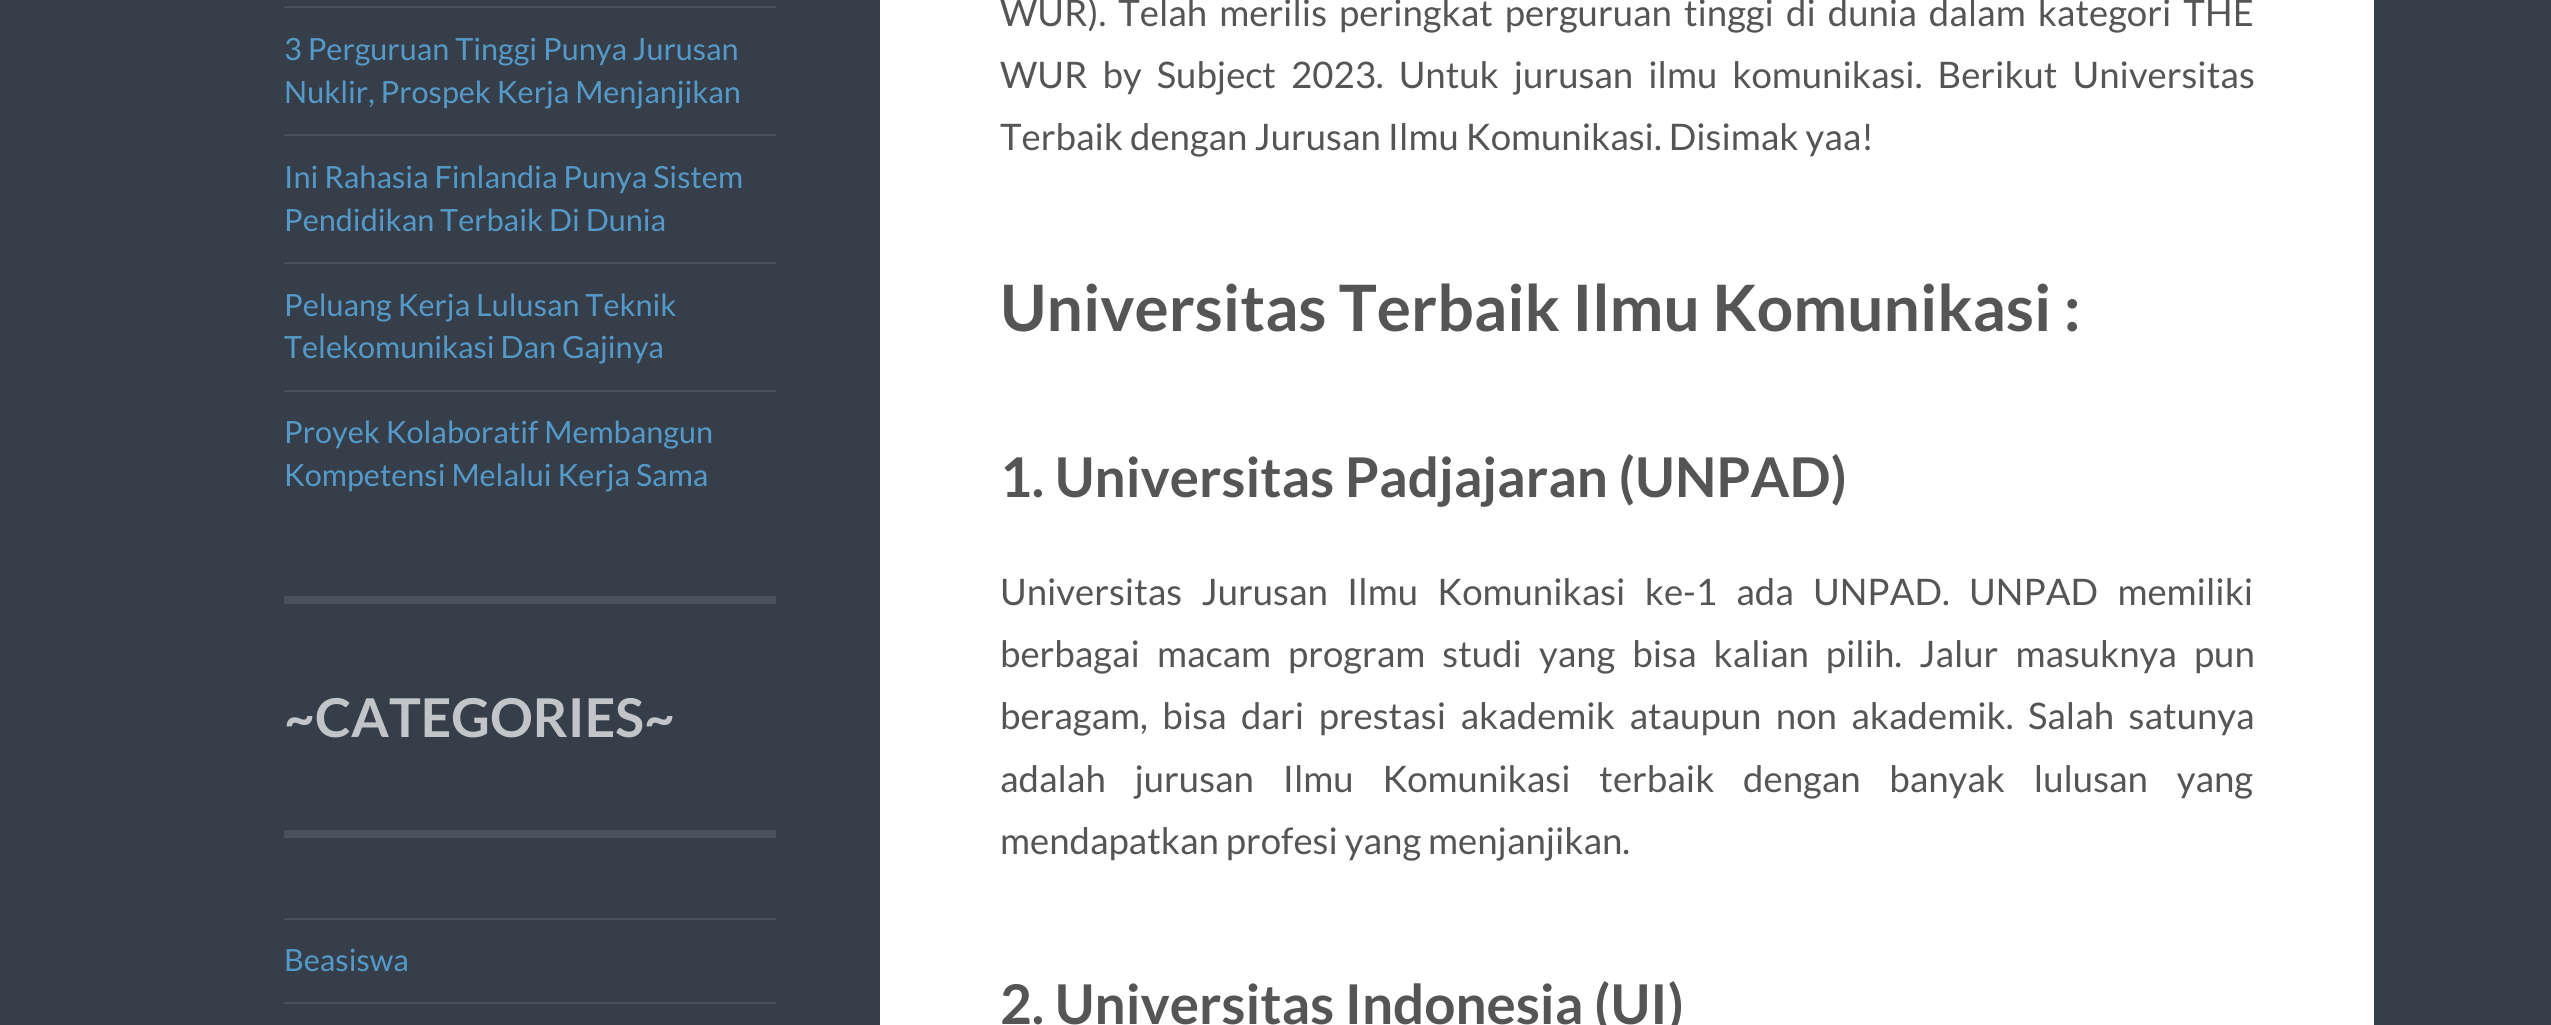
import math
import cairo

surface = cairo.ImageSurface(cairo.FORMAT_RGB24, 2551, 1025)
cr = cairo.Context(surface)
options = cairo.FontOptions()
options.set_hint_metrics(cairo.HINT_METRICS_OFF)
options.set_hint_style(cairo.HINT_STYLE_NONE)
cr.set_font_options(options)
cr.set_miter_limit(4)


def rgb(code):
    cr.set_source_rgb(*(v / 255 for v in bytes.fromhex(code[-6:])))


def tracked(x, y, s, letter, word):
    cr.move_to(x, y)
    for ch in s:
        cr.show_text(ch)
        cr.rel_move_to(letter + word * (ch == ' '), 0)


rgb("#353e49")
cr.paint()
for x, y, w, h, color in [
    (284, 596, 492, 8, "#49515b"),
    (284, 6, 492, 2, "#49515b"),
    (284, 134, 492, 2, "#49515b"),
    (284, 262, 492, 2, "#49515b"),
    (284, 390, 492, 2, "#49515b"),
    (284, 830, 492, 8, "#49515b"),
    (284, 918, 492, 2, "#49515b"),
    (284, 1002, 492, 2, "#49515b"),
    (880, 0, 1494, 1025, "#ffffff"),
]:
    rgb(color)
    cr.rectangle(x, y, w, h)
    cr.fill()
cr.select_font_face("Lato")
cr.set_font_size(30.6)
rgb("#5499c7")
for x, y, s in [
    (284, 60, "3 Perguruan Tinggi Punya Jurusan"),
    (284, 103, "Nuklir, Prospek Kerja Menjanjikan"),
    (284, 188, "Ini Rahasia Finlandia Punya Sistem"),
    (284, 231, "Pendidikan Terbaik Di Dunia"),
    (284, 316, "Peluang Kerja Lulusan Teknik"),
    (284, 358, "Telekomunikasi Dan Gajinya"),
    (284, 443, "Proyek Kolaboratif Membangun"),
    (284, 486, "Kompetensi Melalui Kerja Sama"),
]:
    cr.move_to(x, y)
    cr.show_text(s)
cr.select_font_face("Lato", cairo.FONT_SLANT_NORMAL, cairo.FONT_WEIGHT_BOLD)
cr.set_font_size(53.5)
rgb("#c2c5c8")
cr.move_to(284, 737)
cr.show_text("~CATEGORIES~")
cr.select_font_face("Lato")
cr.set_font_size(30.6)
rgb("#5499c7")
cr.move_to(284, 971)
cr.show_text("Beasiswa")
cr.set_font_size(36.55)
rgb("#555555")
tracked(1000, 26, "WUR). Telah merilis peringkat perguruan tinggi di dunia dalam kategori THE", 0, 5)
tracked(1000, 88, "WUR by Subject 2023. Untuk jurusan ilmu komunikasi. Berikut Universitas", 0, 8)
cr.move_to(1000, 150)
cr.show_text("Terbaik dengan Jurusan Ilmu Komunikasi. Disimak yaa!")
cr.select_font_face("Lato", cairo.FONT_SLANT_NORMAL, cairo.FONT_WEIGHT_BOLD)
cr.set_font_size(64)
cr.move_to(1000, 331)
cr.show_text("Universitas Terbaik Ilmu Komunikasi :")
cr.set_font_size(54.8)
cr.move_to(1000, 497)
cr.show_text("1. Universitas Padjajaran (UNPAD)")
cr.select_font_face("Lato")
cr.set_font_size(36.55)
tracked(1000, 605, "Universitas Jurusan Ilmu Komunikasi ke-1 ada UNPAD. UNPAD memiliki", 0, 12.25)
tracked(1000, 667, "berbagai macam program studi yang bisa kalian pilih. Jalur masuknya pun", 0, 10)
tracked(1000, 729, "beragam, bisa dari prestasi akademik ataupun non akademik. Salah satunya", 0, 7.5)
tracked(1000, 792, "adalah jurusan Ilmu Komunikasi terbaik dengan banyak lulusan yang", 0, 21.75)
cr.move_to(1000, 854)
cr.show_text("mendapatkan profesi yang menjanjikan.")
cr.select_font_face("Lato", cairo.FONT_SLANT_NORMAL, cairo.FONT_WEIGHT_BOLD)
cr.set_font_size(54.8)
cr.move_to(1000, 1024)
cr.show_text("2. Universitas Indonesia (UI)")
surface.write_to_png("page.png")
